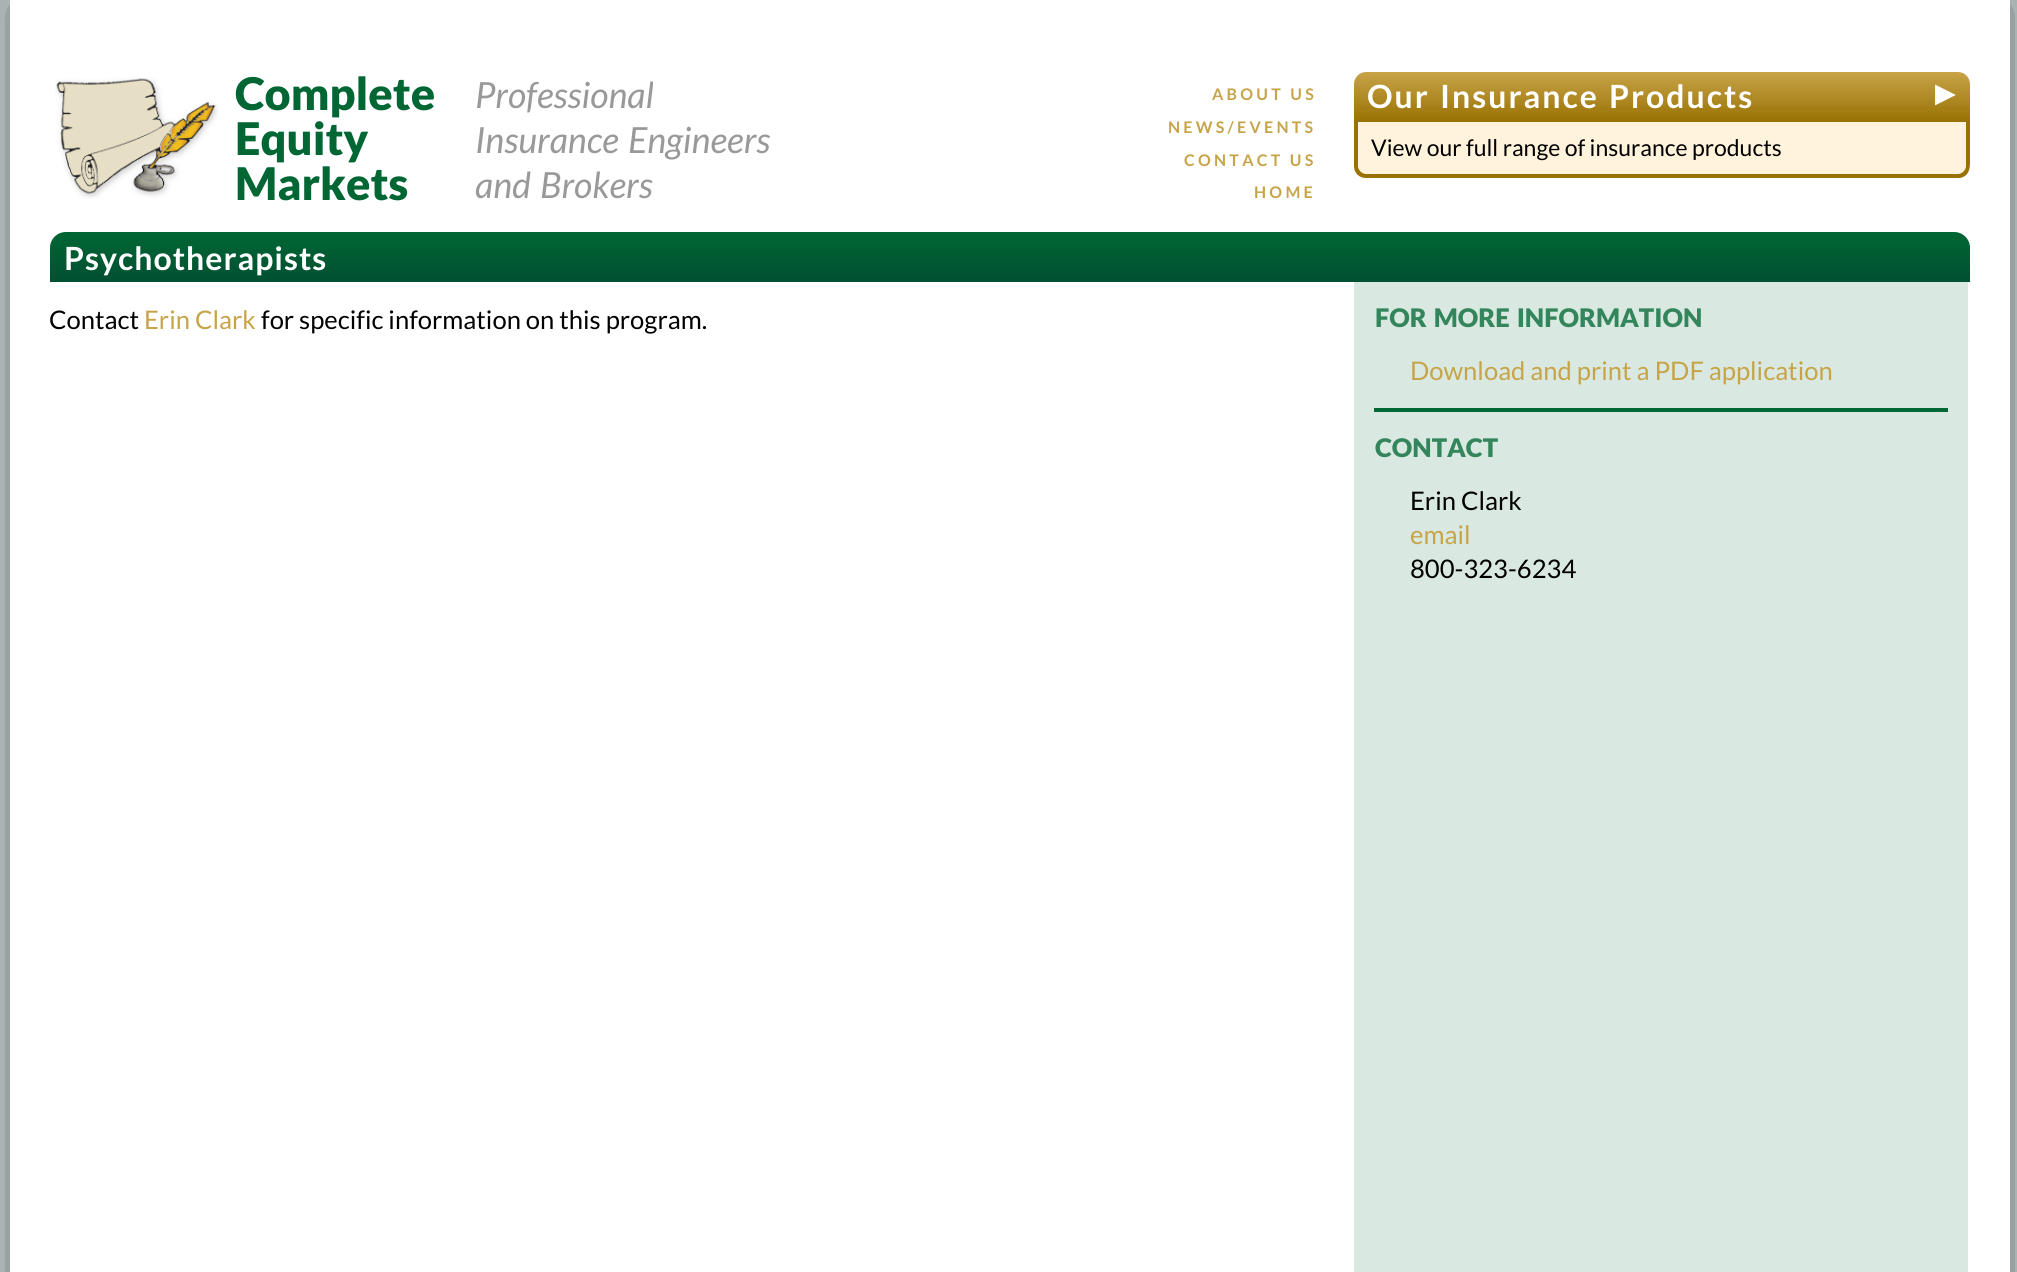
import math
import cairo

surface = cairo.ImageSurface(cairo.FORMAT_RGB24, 2017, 1272)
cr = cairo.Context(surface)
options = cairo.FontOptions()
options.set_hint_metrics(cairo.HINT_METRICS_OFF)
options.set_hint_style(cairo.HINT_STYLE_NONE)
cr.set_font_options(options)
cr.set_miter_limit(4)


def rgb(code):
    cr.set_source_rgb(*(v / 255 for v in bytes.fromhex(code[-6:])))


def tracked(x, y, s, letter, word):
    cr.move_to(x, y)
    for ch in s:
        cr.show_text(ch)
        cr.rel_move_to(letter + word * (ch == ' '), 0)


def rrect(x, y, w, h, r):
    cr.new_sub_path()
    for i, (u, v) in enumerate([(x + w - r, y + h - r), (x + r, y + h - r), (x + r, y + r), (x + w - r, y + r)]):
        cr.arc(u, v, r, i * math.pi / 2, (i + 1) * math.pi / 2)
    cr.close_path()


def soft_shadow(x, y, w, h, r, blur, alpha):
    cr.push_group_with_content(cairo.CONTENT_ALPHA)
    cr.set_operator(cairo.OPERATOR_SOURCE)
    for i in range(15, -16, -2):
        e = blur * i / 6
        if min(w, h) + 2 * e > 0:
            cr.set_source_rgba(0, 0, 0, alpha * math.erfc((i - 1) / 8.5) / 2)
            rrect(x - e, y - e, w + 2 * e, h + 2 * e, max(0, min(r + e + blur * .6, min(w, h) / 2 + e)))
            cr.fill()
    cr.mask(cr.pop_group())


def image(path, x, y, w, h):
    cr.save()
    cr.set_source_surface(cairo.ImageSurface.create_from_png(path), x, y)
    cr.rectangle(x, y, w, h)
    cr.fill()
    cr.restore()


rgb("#cfdfdc")
cr.paint()
rgb("#666666")
soft_shadow(10, 0, 2000, 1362, 0, 30, 1)
rgb("#ffffff")
cr.rectangle(10, 0, 2000, 1272)
cr.fill()
image("img/1.png", 55, 77, 163, 122)
rgb("#fff3db")
rrect(1354, 72, 616, 106, 16)
cr.fill()
gradient = cairo.LinearGradient(1662, 72, 1662, 122)
gradient.add_color_stop_rgba(0, 0.78, 0.643, 0.282, 1)
gradient.add_color_stop_rgba(1, 0.6, 0.447, 0.012, 1)
cr.set_source(gradient)
cr.new_path()
cr.move_to(1366, 72)
cr.line_to(1958, 72)
cr.curve_to(1964.5, 72, 1970, 77.5, 1970, 84)
cr.line_to(1970, 122)
cr.line_to(1354, 122)
cr.line_to(1354, 84)
cr.curve_to(1354, 77.5, 1359.5, 72, 1366, 72)
cr.close_path()
cr.fill()
rgb("#997203")
cr.rectangle(1966, 122, 4, 40)
cr.fill()
cr.rectangle(1354, 122, 4, 40)
cr.fill()
cr.set_fill_rule(cairo.FILL_RULE_EVEN_ODD)
cr.new_path()
cr.move_to(1354, 162)
cr.line_to(1970, 162)
cr.curve_to(1970, 169, 1969, 176, 1960, 178)
cr.line_to(1366, 178)
cr.curve_to(1359, 178, 1354, 173, 1354, 166)
cr.close_path()
cr.move_to(1358, 162)
cr.line_to(1966, 162)
cr.line_to(1966, 166)
cr.curve_to(1966, 170, 1962, 174, 1958, 174)
cr.line_to(1366, 174)
cr.curve_to(1362, 174, 1358, 170, 1358, 166)
cr.close_path()
cr.fill()
gradient = cairo.LinearGradient(1010, 232, 1010, 282)
gradient.add_color_stop_rgba(0, 0, 0.4, 0.2, 1)
gradient.add_color_stop_rgba(1, 0, 0.314, 0.196, 1)
cr.set_source(gradient)
cr.new_path()
cr.move_to(66, 232)
cr.line_to(1954, 232)
cr.curve_to(1963, 232, 1970, 239, 1970, 248)
cr.line_to(1970, 282)
cr.line_to(50, 282)
cr.line_to(50, 248)
cr.curve_to(50, 239, 57, 232, 66, 232)
cr.close_path()
cr.fill()
rgb("#d9e8e0")
cr.rectangle(1354, 282, 614, 990)
cr.fill()
rgb("#006633")
cr.rectangle(1374, 408, 574, 4)
cr.fill()
cr.select_font_face("Lato Black")
cr.set_font_size(45)
for x, y, s in [
    (235, 110, "Complete"),
    (235, 155, "Equity"),
    (235, 200, "Markets"),
]:
    cr.move_to(x, y)
    cr.show_text(s)
cr.select_font_face("Lato", cairo.FONT_SLANT_ITALIC)
cr.set_font_size(36)
rgb("#999999")
cr.move_to(475, 108)
cr.show_text("Professional")
tracked(475, 153, "Insurance Engineers", 0, 2)
tracked(475, 198, "and Brokers", 0, 2)
cr.select_font_face("Lato", cairo.FONT_SLANT_NORMAL, cairo.FONT_WEIGHT_BOLD)
cr.set_font_size(16)
rgb("#c7a448")
for x, y, s in [
    (1212, 100, "ABOUT US"),
    (1168, 133, "NEWS/EVENTS"),
    (1184, 166, "CONTACT US"),
    (1254, 198, "HOME"),
]:
    tracked(x, y, s, 3.25, 0)
cr.set_font_size(32)
rgb("#ffffff")
tracked(1367, 108, "Our Insurance Products", 2, 2)
cr.select_font_face("DejaVu Sans", cairo.FONT_SLANT_NORMAL, cairo.FONT_WEIGHT_BOLD)
cr.set_font_size(25.6)
tracked(1935, 102, "▶", 2, 0)
cr.select_font_face("Lato")
cr.set_font_size(23)
rgb("#000000")
cr.move_to(1371, 156)
cr.show_text("View our full range of insurance products")
cr.select_font_face("Lato", cairo.FONT_SLANT_NORMAL, cairo.FONT_WEIGHT_BOLD)
cr.set_font_size(32)
rgb("#ffffff")
tracked(64, 270, "Psychotherapists", 1, 0)
cr.select_font_face("Lato")
cr.set_font_size(25.6)
rgb("#000000")
cr.move_to(49, 329)
cr.show_text("Contact")
rgb("#c7a448")
cr.move_to(144, 329)
cr.show_text("Erin Clark")
rgb("#000000")
cr.move_to(261, 329)
cr.show_text("for specific information on this program.")
cr.select_font_face("Lato Black")
rgb("#33855b")
tracked(1375, 327, "FOR MORE INFORMATION", 0, 2)
cr.select_font_face("Lato")
rgb("#c7a448")
cr.move_to(1410, 380)
cr.show_text("Download and print a PDF application")
cr.select_font_face("Lato Black")
rgb("#33855b")
cr.move_to(1375, 457)
cr.show_text("CONTACT")
cr.select_font_face("Lato")
rgb("#000000")
cr.move_to(1410, 510)
cr.show_text("Erin Clark")
rgb("#c7a448")
cr.move_to(1410, 544)
cr.show_text("email")
rgb("#000000")
cr.move_to(1410, 578)
cr.show_text("800-323-6234")
surface.write_to_png("page.png")
